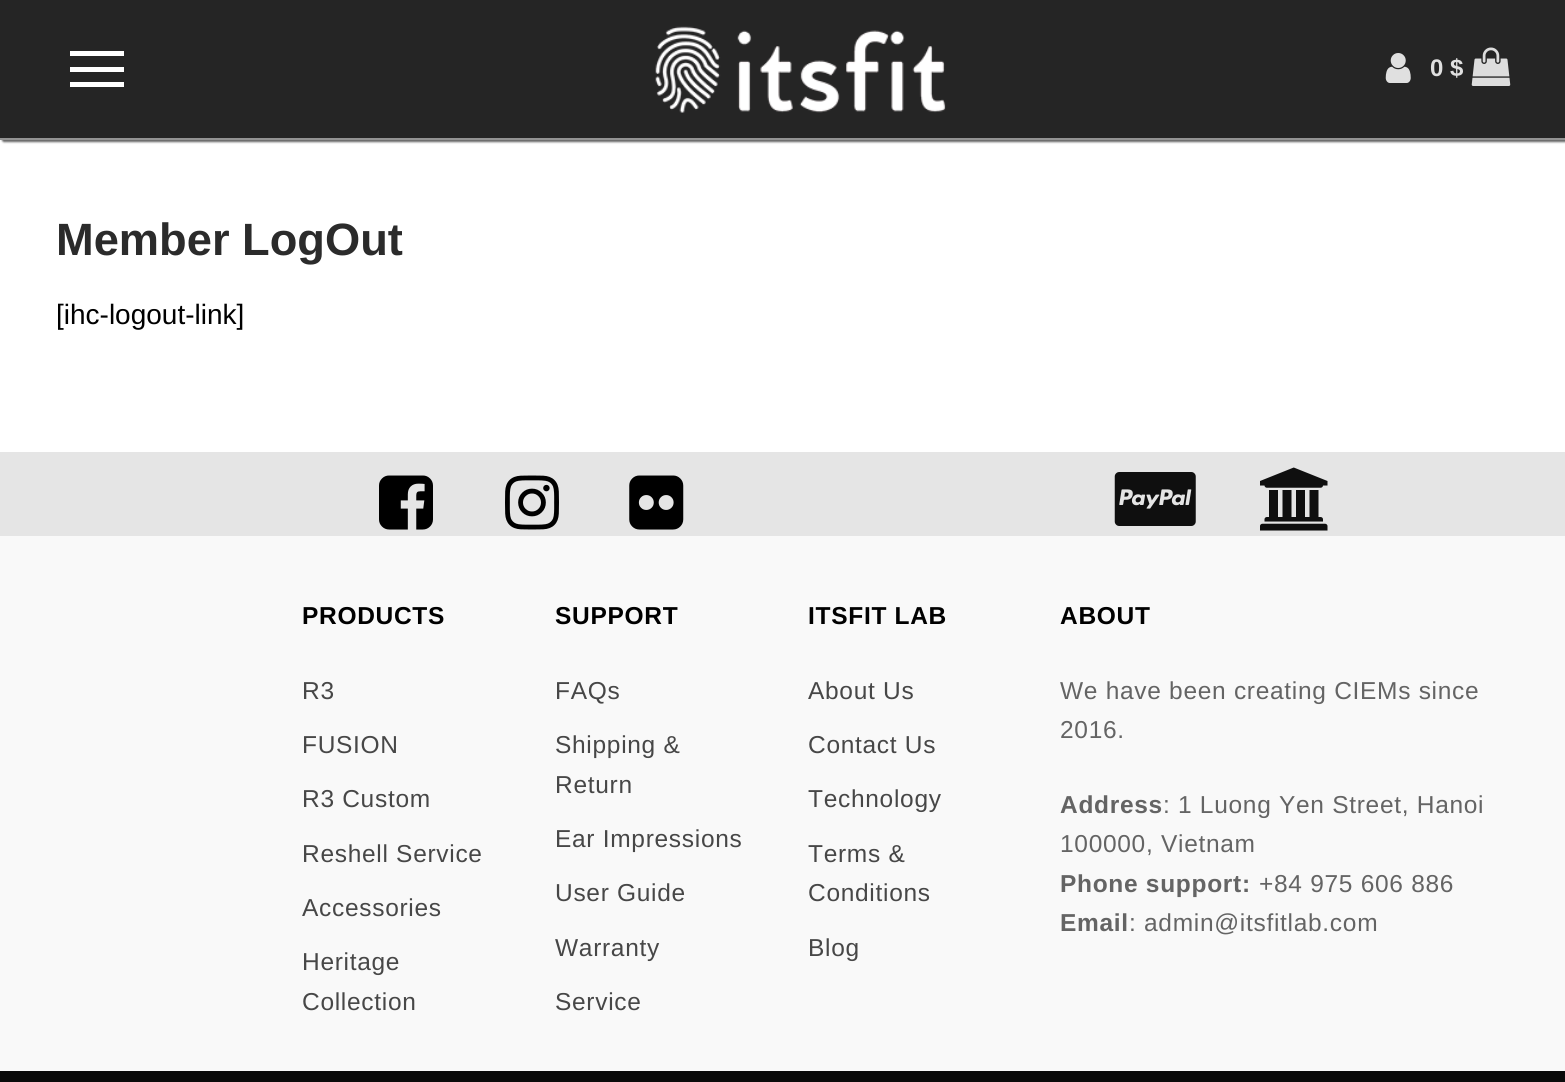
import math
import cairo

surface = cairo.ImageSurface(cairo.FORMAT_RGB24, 1565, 1082)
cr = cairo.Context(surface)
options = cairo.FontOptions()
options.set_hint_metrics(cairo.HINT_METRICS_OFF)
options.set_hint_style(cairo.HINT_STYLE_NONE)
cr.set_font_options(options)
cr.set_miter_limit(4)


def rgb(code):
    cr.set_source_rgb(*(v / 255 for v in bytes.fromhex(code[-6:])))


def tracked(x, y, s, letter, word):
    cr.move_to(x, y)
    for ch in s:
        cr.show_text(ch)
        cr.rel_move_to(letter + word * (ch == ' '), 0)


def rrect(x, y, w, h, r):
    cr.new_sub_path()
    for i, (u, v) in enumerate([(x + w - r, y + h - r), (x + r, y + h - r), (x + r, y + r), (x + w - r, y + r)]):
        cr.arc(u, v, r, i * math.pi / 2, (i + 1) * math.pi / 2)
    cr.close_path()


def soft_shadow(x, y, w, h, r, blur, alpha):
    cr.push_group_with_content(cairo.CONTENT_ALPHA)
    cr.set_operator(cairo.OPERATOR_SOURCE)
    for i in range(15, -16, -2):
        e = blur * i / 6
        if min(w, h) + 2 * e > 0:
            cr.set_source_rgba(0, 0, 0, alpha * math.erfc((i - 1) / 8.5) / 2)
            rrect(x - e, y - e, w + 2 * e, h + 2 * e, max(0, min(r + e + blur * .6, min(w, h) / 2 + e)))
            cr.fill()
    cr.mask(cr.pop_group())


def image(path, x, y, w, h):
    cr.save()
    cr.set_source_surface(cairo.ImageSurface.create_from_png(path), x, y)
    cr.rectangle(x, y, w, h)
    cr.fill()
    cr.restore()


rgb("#ffffff")
cr.paint()
rgb("#4f4f4f")
soft_shadow(2, 2, 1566, 140, 2, 1, 0.88)
for x, y, w, h, color in [
    (0, 0, 1565, 138, "#252525"),
    (0, 138, 1565, 2, "#939393"),
    (70, 67, 54, 5, "#ffffff"),
    (70, 51, 54, 5, "#ffffff"),
    (70, 82, 54, 5, "#ffffff"),
]:
    rgb(color)
    cr.rectangle(x, y, w, h)
    cr.fill()
image("img/1.png", 655, 26, 291, 87)
image("img/2.png", 1385, 53, 26, 30)
image("img/3.png", 1471, 47, 40, 39)
rgb("#e5e5e5")
cr.rectangle(0, 452, 1565, 84)
cr.fill()
image("img/4.png", 379, 475, 54, 55)
image("img/5.png", 505, 475, 54, 55)
image("img/6.png", 629, 475, 55, 55)
image("img/7.png", 1114, 472, 82, 54)
image("img/8.png", 1260, 467, 68, 64)
rgb("#f9f9f9")
cr.rectangle(0, 536, 1565, 535)
cr.fill()
rgb("#0a0a0a")
cr.rectangle(0, 1071, 1565, 11)
cr.fill()
cr.select_font_face("Liberation Sans", cairo.FONT_SLANT_NORMAL, cairo.FONT_WEIGHT_BOLD)
cr.set_font_size(24)
rgb("#e0e0e0")
cr.move_to(1430, 76)
cr.show_text("0 $")
cr.set_font_size(45.25)
rgb("#2b2b2b")
cr.move_to(56, 255)
cr.show_text("Member LogOut")
cr.select_font_face("Liberation Sans")
cr.set_font_size(28)
rgb("#000000")
cr.move_to(56, 324)
cr.show_text("[ihc-logout-link]")
cr.select_font_face("Liberation Sans", cairo.FONT_SLANT_NORMAL, cairo.FONT_WEIGHT_BOLD)
cr.set_font_size(24.5)
tracked(302, 624, "PRODUCTS", 0.7, 0)
cr.select_font_face("Liberation Sans")
rgb("#474747")
for x, y, s in [
    (302, 699, "R3"),
    (302, 753, "FUSION"),
    (302, 807, "R3 Custom"),
    (302, 862, "Reshell Service"),
    (302, 916, "Accessories"),
    (302, 970, "Heritage"),
    (302, 1010, "Collection"),
]:
    tracked(x, y, s, 0.7, 0)
cr.select_font_face("Liberation Sans", cairo.FONT_SLANT_NORMAL, cairo.FONT_WEIGHT_BOLD)
rgb("#000000")
tracked(555, 624, "SUPPORT", 0.7, 0)
cr.select_font_face("Liberation Sans")
rgb("#474747")
for x, y, s in [
    (555, 699, "FAQs"),
    (555, 753, "Shipping &"),
    (555, 793, "Return"),
    (555, 847, "Ear Impressions"),
    (555, 901, "User Guide"),
    (555, 956, "Warranty"),
    (555, 1010, "Service"),
]:
    tracked(x, y, s, 0.7, 0)
cr.select_font_face("Liberation Sans", cairo.FONT_SLANT_NORMAL, cairo.FONT_WEIGHT_BOLD)
rgb("#000000")
tracked(808, 624, "ITSFIT LAB", 0.7, 0)
cr.select_font_face("Liberation Sans")
rgb("#474747")
for x, y, s in [
    (808, 699, "About Us"),
    (808, 753, "Contact Us"),
    (808, 807, "Technology"),
    (808, 862, "Terms &"),
    (808, 901, "Conditions"),
    (808, 956, "Blog"),
]:
    tracked(x, y, s, 0.7, 0)
cr.select_font_face("Liberation Sans", cairo.FONT_SLANT_NORMAL, cairo.FONT_WEIGHT_BOLD)
rgb("#000000")
tracked(1060, 624, "ABOUT", 0.7, 0)
cr.select_font_face("Liberation Sans")
rgb("#646464")
tracked(1060, 699, "We have been creating CIEMs since", 0.7, 0)
tracked(1060, 738, "2016.", 0.7, 0)
cr.select_font_face("Liberation Sans", cairo.FONT_SLANT_NORMAL, cairo.FONT_WEIGHT_BOLD)
tracked(1060, 813, "Address", 0.7, 0)
cr.select_font_face("Liberation Sans")
tracked(1163, 813, ": 1 Luong Yen Street, Hanoi", 0.7, 0)
tracked(1060, 852, "100000, Vietnam", 0.7, 0)
cr.select_font_face("Liberation Sans", cairo.FONT_SLANT_NORMAL, cairo.FONT_WEIGHT_BOLD)
tracked(1060, 892, "Phone support:", 0.7, 0)
cr.select_font_face("Liberation Sans")
tracked(1259, 892, "+84 975 606 886", 0.7, 0)
cr.select_font_face("Liberation Sans", cairo.FONT_SLANT_NORMAL, cairo.FONT_WEIGHT_BOLD)
tracked(1060, 931, "Email", 0.7, 0)
cr.select_font_face("Liberation Sans")
tracked(1129, 931, ": admin@itsfitlab.com", 0.7, 0)
surface.write_to_png("page.png")
